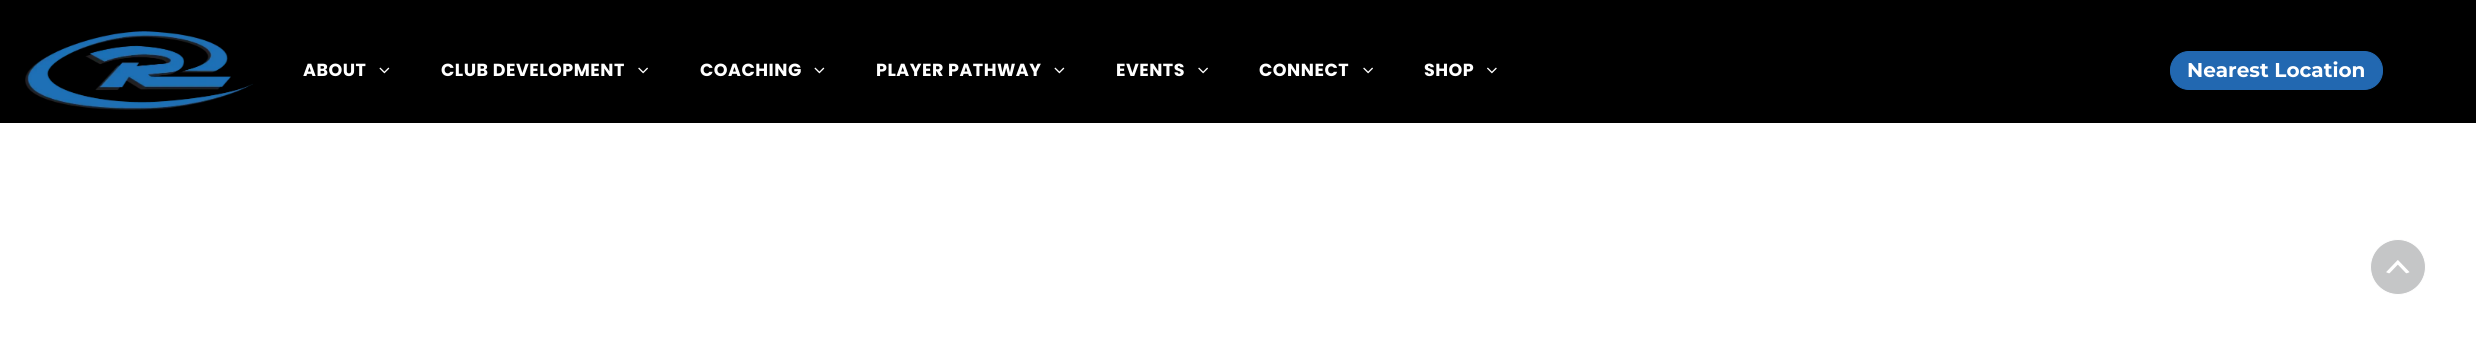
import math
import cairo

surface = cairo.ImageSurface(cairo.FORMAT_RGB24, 2476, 344)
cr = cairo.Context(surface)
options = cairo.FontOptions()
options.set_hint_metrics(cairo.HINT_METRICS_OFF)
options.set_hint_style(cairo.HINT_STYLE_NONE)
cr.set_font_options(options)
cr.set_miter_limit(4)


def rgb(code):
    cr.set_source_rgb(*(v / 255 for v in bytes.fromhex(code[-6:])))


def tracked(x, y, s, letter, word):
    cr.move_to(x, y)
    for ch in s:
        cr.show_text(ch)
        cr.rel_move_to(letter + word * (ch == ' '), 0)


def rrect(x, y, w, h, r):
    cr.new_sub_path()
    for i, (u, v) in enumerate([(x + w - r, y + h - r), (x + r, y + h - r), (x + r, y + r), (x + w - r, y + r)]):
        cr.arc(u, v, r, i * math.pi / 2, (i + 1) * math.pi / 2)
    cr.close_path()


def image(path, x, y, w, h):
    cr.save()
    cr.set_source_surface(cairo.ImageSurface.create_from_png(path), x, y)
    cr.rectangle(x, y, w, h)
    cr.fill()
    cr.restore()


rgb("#ffffff")
cr.paint()
rgb("#000000")
cr.rectangle(0, 0, 2476, 123)
cr.fill()
image("img/1.png", 25, 31, 228, 79)
image("img/2.png", 379, 67, 11, 7)
image("img/3.png", 638, 67, 10, 7)
image("img/2.png", 814, 67, 11, 7)
image("img/2.png", 1054, 67, 11, 7)
image("img/3.png", 1198, 67, 10, 7)
image("img/3.png", 1363, 67, 10, 7)
image("img/4.png", 1487, 67, 10, 7)
rgb("#2268b1")
rrect(2170.5, 51.5, 212, 38, 18.5)
cr.fill_preserve()
cr.set_line_width(1)
cr.stroke()
rgb("#c5c6c7")
cr.arc(2398, 267, 27.5, 0, 2 * math.pi)
cr.fill_preserve()
rgb("#ffffff")
cr.stroke()
image("img/5.png", 2386, 260, 24, 14)
cr.select_font_face("Poppins", cairo.FONT_SLANT_NORMAL, cairo.FONT_WEIGHT_BOLD)
cr.set_font_size(17.5)
for x, y, s in [
    (303, 76, "ABOUT"),
    (441, 76, "CLUB DEVELOPMENT"),
    (700, 76, "COACHING"),
    (876, 76, "PLAYER PATHWAY"),
    (1116, 76, "EVENTS"),
    (1259, 76, "CONNECT"),
    (1424, 76, "SHOP"),
]:
    tracked(x, y, s, 0.5, 0)
cr.select_font_face("Montserrat", cairo.FONT_SLANT_NORMAL, cairo.FONT_WEIGHT_BOLD)
cr.set_font_size(20)
cr.move_to(2187, 77)
cr.show_text("Nearest Location")
surface.write_to_png("page.png")
